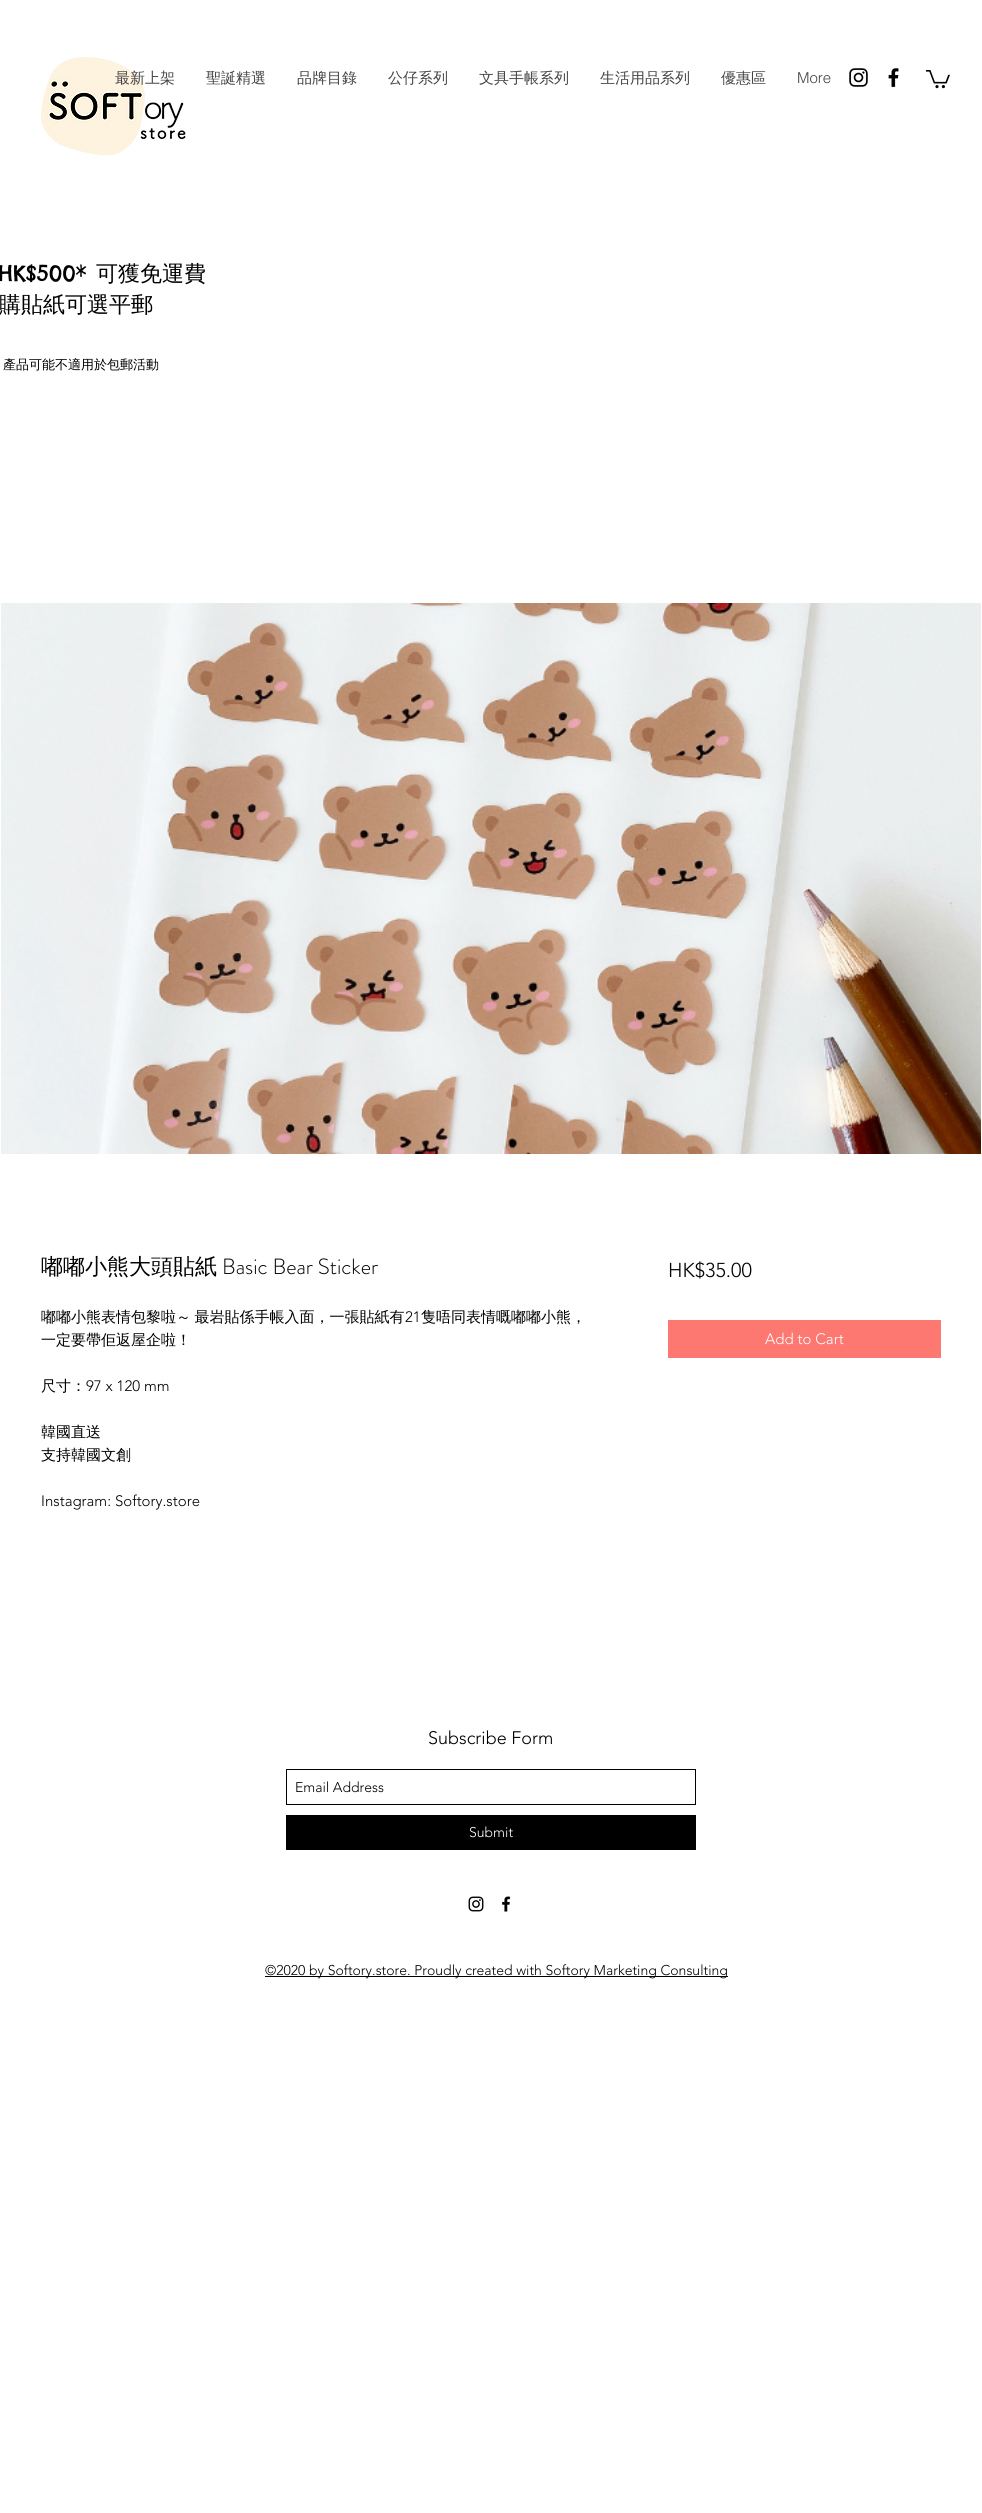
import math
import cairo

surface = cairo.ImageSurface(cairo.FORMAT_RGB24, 982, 2513)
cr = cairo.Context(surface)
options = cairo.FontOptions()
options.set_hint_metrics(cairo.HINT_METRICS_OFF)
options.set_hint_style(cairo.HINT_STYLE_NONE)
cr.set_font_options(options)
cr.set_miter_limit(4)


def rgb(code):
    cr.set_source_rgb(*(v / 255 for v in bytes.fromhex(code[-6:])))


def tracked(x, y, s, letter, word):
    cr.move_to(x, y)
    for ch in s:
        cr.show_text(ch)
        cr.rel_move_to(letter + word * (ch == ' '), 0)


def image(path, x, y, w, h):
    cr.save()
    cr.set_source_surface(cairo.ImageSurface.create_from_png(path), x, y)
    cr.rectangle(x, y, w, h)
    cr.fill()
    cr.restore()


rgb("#ffffff")
cr.paint()
image("img/1.png", 41, 57, 145, 99)
image("img/2.png", 849, 68, 19, 19)
image("img/3.png", 888, 68, 11, 20)
image("img/4.png", 926, 70, 24, 19)
image("img/5.png", 1, 603, 980, 551)
rgb("#fc7870")
cr.rectangle(668, 1320, 273, 38)
cr.fill()
cr.rectangle(286.5, 1769.5, 409, 35)
rgb("#000000")
cr.set_line_width(1)
cr.stroke()
cr.rectangle(286, 1815, 410, 35)
cr.fill()
image("img/6.png", 468, 1896, 16, 16)
image("img/7.png", 502, 1896, 9, 16)
cr.rectangle(265, 1976, 463, 1)
cr.fill()
cr.select_font_face("WenQuanYi Zen Hei Medium")
cr.set_font_size(15)
rgb("#444444")
for x, y, s in [
    (115, 83, "最新上架"),
    (206, 83, "聖誕精選"),
    (297, 83, "品牌目錄"),
    (388, 83, "公仔系列"),
    (479, 83, "文具手帳系列"),
    (600, 83, "生活用品系列"),
    (721, 83, "優惠區"),
]:
    cr.move_to(x, y)
    cr.show_text(s)
cr.select_font_face("helvetica Light")
cr.move_to(797, 83)
cr.show_text("More")
cr.select_font_face("Chelsea Market")
cr.set_font_size(22)
rgb("#000000")
cr.move_to(-2, 281)
cr.show_text("HK$500*")
cr.select_font_face("WenQuanYi Zen Hei Medium")
cr.move_to(96, 281)
cr.show_text("可獲免運費")
cr.move_to(-1, 312)
cr.show_text("購貼紙可選平郵")
cr.set_font_size(13)
cr.move_to(3, 369)
cr.show_text("產品可能不適用於包郵活動")
cr.set_font_size(22)
cr.move_to(41, 1274)
cr.show_text("嘟嘟小熊大頭貼紙")
cr.select_font_face("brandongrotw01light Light")
cr.move_to(222, 1274)
cr.show_text("Basic Bear Sticker")
cr.select_font_face("WenQuanYi Zen Hei Medium")
cr.set_font_size(15)
tracked(41, 1322, "嘟嘟小熊表情包黎啦～ 最岩貼係手帳入面，一張貼紙有", 0, -1)
cr.select_font_face("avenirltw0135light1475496 Light")
cr.move_to(405, 1322)
cr.show_text("21")
cr.select_font_face("WenQuanYi Zen Hei Medium")
for x, y, s in [
    (421, 1322, "隻唔同表情嘅嘟嘟小熊，"),
    (41, 1345, "一定要帶佢返屋企啦！"),
    (41, 1391, "尺寸："),
]:
    cr.move_to(x, y)
    cr.show_text(s)
cr.select_font_face("avenirltw0135light1475496 Light")
cr.move_to(86, 1391)
cr.show_text("97 x 120 mm")
cr.select_font_face("WenQuanYi Zen Hei Medium")
cr.move_to(41, 1437)
cr.show_text("韓國直送")
cr.move_to(41, 1460)
cr.show_text("支持韓國文創")
cr.select_font_face("avenirltw0135light1475496 Light")
cr.move_to(41, 1506)
cr.show_text("Instagram: Softory.store")
cr.set_font_size(20)
cr.move_to(668, 1277)
cr.show_text("HK$35.00")
cr.set_font_size(15)
rgb("#ffffff")
cr.move_to(765, 1344)
cr.show_text("Add to Cart")
cr.set_font_size(18)
rgb("#000000")
cr.move_to(428, 1744)
cr.show_text("Subscribe Form")
cr.set_font_size(14)
cr.move_to(295, 1792)
cr.show_text("Email Address")
rgb("#ffffff")
cr.move_to(469, 1837)
cr.show_text("Submit")
rgb("#000000")
cr.move_to(265, 1975)
cr.show_text("©2020 by Softory.store. Proudly created with Softory Marketing Consulting")
surface.write_to_png("page.png")
